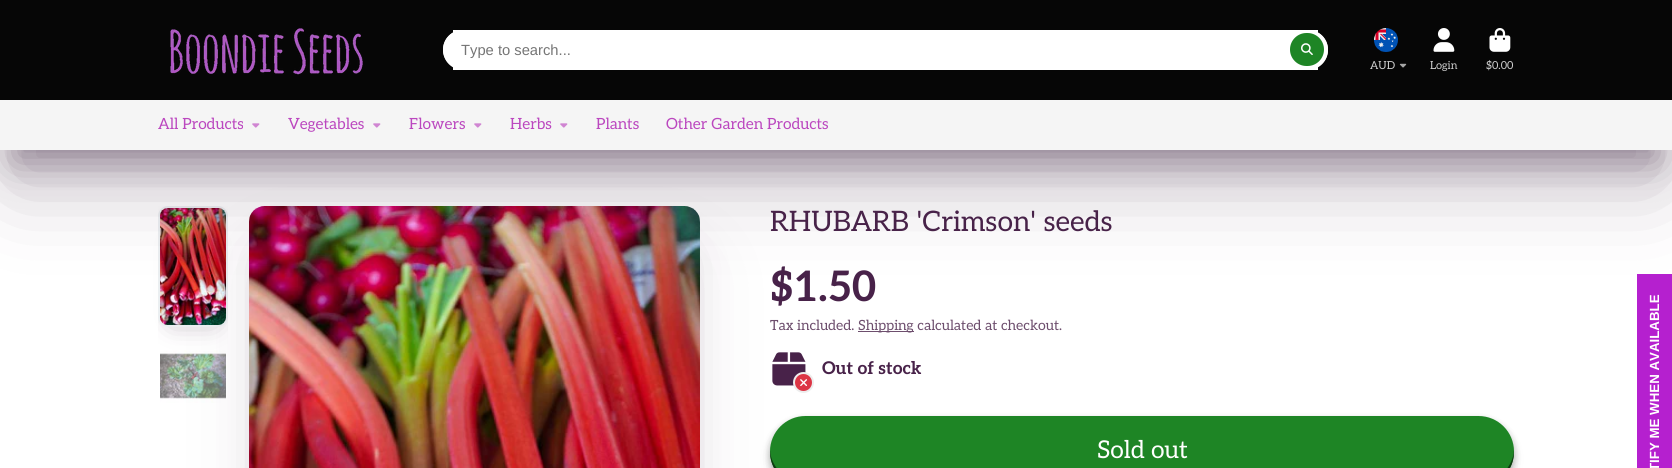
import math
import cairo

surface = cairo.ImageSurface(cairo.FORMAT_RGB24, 1672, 468)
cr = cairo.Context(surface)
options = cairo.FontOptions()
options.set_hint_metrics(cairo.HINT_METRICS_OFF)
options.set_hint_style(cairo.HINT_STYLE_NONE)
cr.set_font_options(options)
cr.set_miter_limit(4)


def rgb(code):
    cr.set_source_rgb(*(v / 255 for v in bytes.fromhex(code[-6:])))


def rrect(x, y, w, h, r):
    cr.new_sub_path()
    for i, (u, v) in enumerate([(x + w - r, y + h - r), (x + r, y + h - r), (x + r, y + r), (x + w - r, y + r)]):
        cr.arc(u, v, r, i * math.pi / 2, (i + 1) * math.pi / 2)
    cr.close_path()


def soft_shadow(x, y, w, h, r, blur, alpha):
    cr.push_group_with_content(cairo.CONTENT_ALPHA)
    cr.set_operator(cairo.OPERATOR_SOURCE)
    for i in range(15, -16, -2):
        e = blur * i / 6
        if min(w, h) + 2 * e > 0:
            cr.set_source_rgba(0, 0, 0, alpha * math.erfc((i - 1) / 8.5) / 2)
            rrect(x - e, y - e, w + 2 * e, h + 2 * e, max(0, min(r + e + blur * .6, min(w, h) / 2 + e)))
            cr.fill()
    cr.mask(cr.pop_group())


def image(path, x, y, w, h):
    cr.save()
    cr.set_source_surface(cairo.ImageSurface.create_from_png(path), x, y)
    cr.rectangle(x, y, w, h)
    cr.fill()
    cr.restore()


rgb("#ffffff")
cr.paint()
cr.save()
cr.rectangle(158, 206, 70, 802)
cr.clip()
rgb("#371a38")
soft_shadow(172, 227, 42, 93, 0, 14, 0.3)
cr.restore()
rgb("#371a38")
soft_shadow(179, 241, 28, 79, 0, 14, 0.1)
rrect(159, 207, 68, 119, 9)
rgb("#ebeff1")
cr.stroke()
image("img/9.png", 160, 208, 66, 117)
image("img/10.png", 160, 350, 66, 53)
rgb("#371a38")
soft_shadow(275, 259, 399, 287, 0, 26, 0.3)
soft_shadow(267, 267, 416, 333, 0, 44, 0.1)
image("img/8.png", 249, 206, 451, 262)
soft_shadow(14, 40, 1644, 122, 0, 19, 0.4)
soft_shadow(14, 58, 1644, 122, 0, 44, 0.3)
rgb("#060606")
cr.rectangle(0, 0, 1672, 100)
cr.fill()
image("img/1.png", 170, 28, 193, 47)
rgb("#ffffff")
rrect(443, 30, 885, 40, 20)
cr.fill()
cr.rectangle(453, 30, 865, 40)
cr.fill()
rrect(443, 30, 885, 39, 19.5)
cr.fill()
rgb("#1e8525")
rrect(1290, 33, 34, 33, 16.5)
cr.fill()
image("img/2.png", 1301, 43, 12, 12)
image("img/3.png", 1374, 28, 24, 24)
image("img/4.png", 1399, 63, 8, 5)
image("img/5.png", 1433, 28, 22, 24)
image("img/6.png", 1489, 28, 22, 24)
rgb("#f5f5f5")
cr.rectangle(0, 100, 1672, 50)
cr.fill()
image("img/7.png", 252, 123, 8, 5)
image("img/7.png", 373, 123, 8, 5)
image("img/7.png", 474, 123, 8, 5)
image("img/7.png", 560, 123, 8, 5)
rgb("#6d4e6d")
cr.rectangle(858, 331, 56, 1)
cr.fill()
image("img/11.png", 772, 352, 34, 34)
rgb("#dc3545")
cr.arc(803.5, 382.5, 9.5, 0, 2 * math.pi)
cr.fill_preserve()
rgb("#ededed")
cr.stroke()
image("img/12.png", 800, 379, 7, 7)
rgb("#020802")
soft_shadow(774, 427, 736, 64, 32, 7.5, 0.15)
soft_shadow(770, 420, 744, 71, 35.5, 3.5, 0.3)
rgb("#1e8525")
rrect(770, 416, 744, 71, 35.5)
cr.fill()
rgb("#0d3a10")
cr.new_path()
cr.move_to(770, 450)
cr.curve_to(769, 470, 785, 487, 806, 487)
cr.line_to(1478, 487)
cr.curve_to(1499, 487, 1515, 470, 1514, 450)
cr.curve_to(1513, 468, 1497, 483, 1478, 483)
cr.line_to(806, 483)
cr.curve_to(787, 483, 771, 468, 770, 450)
cr.close_path()
cr.fill()
rgb("#b520cf")
cr.rectangle(1637, 274, 35, 194)
cr.fill()
cr.select_font_face("Liberation Sans")
cr.set_font_size(14.75)
rgb("#757575")
cr.move_to(461, 55)
cr.show_text("Type to search...")
cr.select_font_face("Aleo")
cr.set_font_size(11)
rgb("#cdcdcd")
for x, y, s in [
    (1370, 69, "AUD"),
    (1430, 69, "Login"),
    (1486, 69, "$0.00"),
]:
    cr.move_to(x, y)
    cr.show_text(s)
cr.set_font_size(15.4)
rgb("#bb47bf")
for x, y, s in [
    (158, 129, "All Products"),
    (288, 129, "Vegetables"),
    (409, 129, "Flowers"),
    (510, 129, "Herbs"),
    (596, 129, "Plants"),
    (666, 129, "Other Garden Products"),
]:
    cr.move_to(x, y)
    cr.show_text(s)
cr.set_font_size(28.2)
rgb("#482249")
cr.move_to(770, 231)
cr.show_text("RHUBARB 'Crimson' seeds")
cr.select_font_face("Aleo", cairo.FONT_SLANT_NORMAL, cairo.FONT_WEIGHT_BOLD)
cr.set_font_size(42)
cr.move_to(770, 301)
cr.show_text("$1.50")
cr.select_font_face("Aleo")
cr.set_font_size(14)
rgb("#6d4e6d")
cr.move_to(770, 330)
cr.show_text("Tax included.")
cr.move_to(858, 330)
cr.show_text("Shipping calculated at checkout.")
cr.select_font_face("Aleo", cairo.FONT_SLANT_NORMAL, cairo.FONT_WEIGHT_BOLD)
cr.set_font_size(17.5)
rgb("#482249")
cr.move_to(822, 374)
cr.show_text("Out of stock")
cr.select_font_face("Aleo")
cr.set_font_size(24.5)
rgb("#ffffff")
cr.move_to(1097, 458)
cr.show_text("Sold out")
cr.select_font_face("Liberation Sans", cairo.FONT_SLANT_NORMAL, cairo.FONT_WEIGHT_BOLD)
cr.set_font_size(13.3)
cr.save()
cr.translate(1659, 491)
cr.rotate(-90 * math.pi / 180)
cr.move_to(0, 0)
cr.show_text("NOTIFY ME WHEN AVAILABLE")
cr.restore()
surface.write_to_png("page.png")
